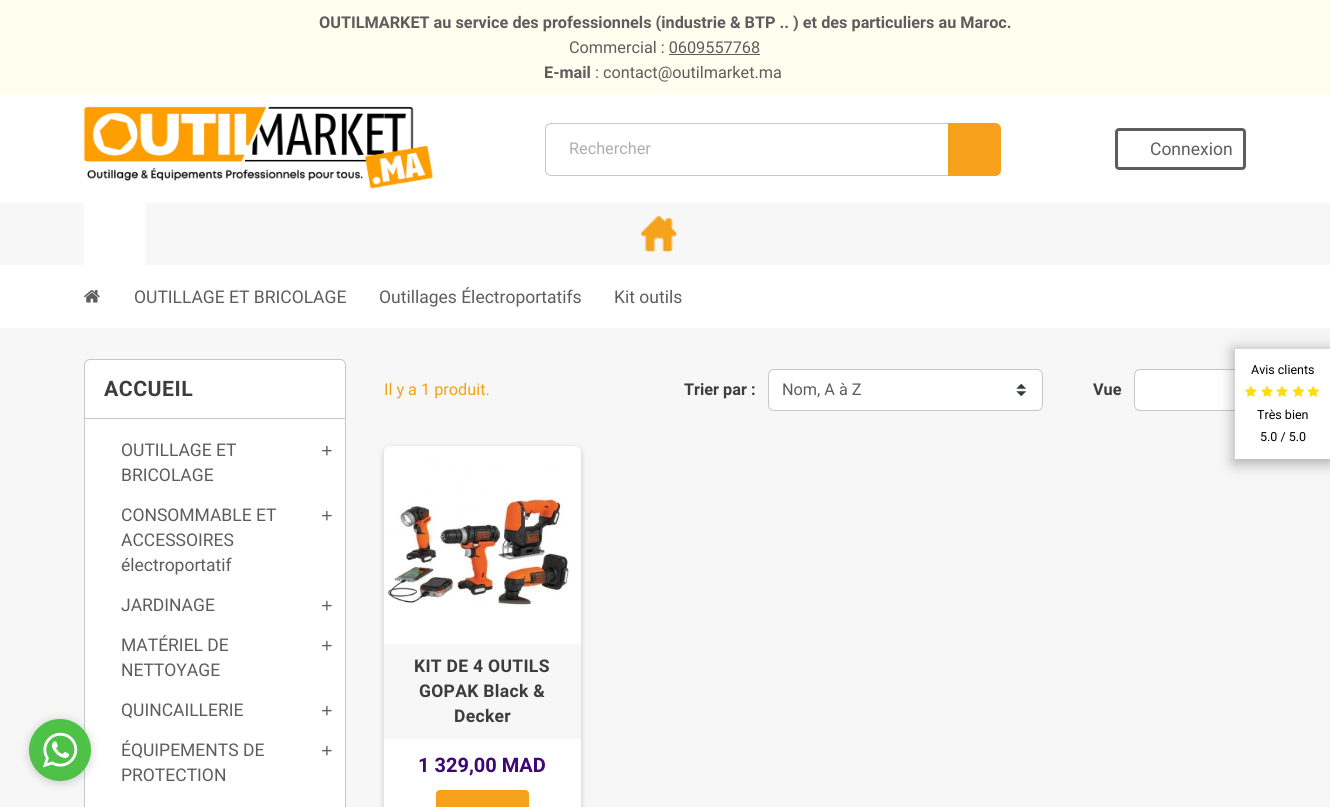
import math
import cairo

surface = cairo.ImageSurface(cairo.FORMAT_RGB24, 1330, 807)
cr = cairo.Context(surface)
options = cairo.FontOptions()
options.set_hint_metrics(cairo.HINT_METRICS_OFF)
options.set_hint_style(cairo.HINT_STYLE_NONE)
cr.set_font_options(options)
cr.set_miter_limit(4)


def rgb(code):
    cr.set_source_rgb(*(v / 255 for v in bytes.fromhex(code[-6:])))


def tracked(x, y, s, letter, word):
    cr.move_to(x, y)
    for ch in s:
        cr.show_text(ch)
        cr.rel_move_to(letter + word * (ch == ' '), 0)


def rrect(x, y, w, h, r):
    cr.new_sub_path()
    for i, (u, v) in enumerate([(x + w - r, y + h - r), (x + r, y + h - r), (x + r, y + r), (x + w - r, y + r)]):
        cr.arc(u, v, r, i * math.pi / 2, (i + 1) * math.pi / 2)
    cr.close_path()


def soft_shadow(x, y, w, h, r, blur, alpha):
    cr.push_group_with_content(cairo.CONTENT_ALPHA)
    cr.set_operator(cairo.OPERATOR_SOURCE)
    for i in range(15, -16, -2):
        e = blur * i / 6
        if min(w, h) + 2 * e > 0:
            cr.set_source_rgba(0, 0, 0, alpha * math.erfc((i - 1) / 8.5) / 2)
            rrect(x - e, y - e, w + 2 * e, h + 2 * e, max(0, min(r + e + blur * .6, min(w, h) / 2 + e)))
            cr.fill()
    cr.mask(cr.pop_group())


def image(path, x, y, w, h):
    cr.save()
    cr.set_source_surface(cairo.ImageSurface.create_from_png(path), x, y)
    cr.rectangle(x, y, w, h)
    cr.fill()
    cr.restore()


rgb("#ffffff")
cr.paint()
rgb("#f7f7f7")
cr.rectangle(0, 328, 1330, 479)
cr.fill()
rgb("#ffffff")
rrect(84.5, 359.5, 261, 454, 5.5)
cr.fill_preserve()
rgb("#c7c7c7")
cr.set_line_width(1)
cr.stroke()
rgb("#888888")
soft_shadow(29, 720, 62, 63, 31, 4.5, 0.4)
rgb("#4dc247")
cr.arc(60, 750, 31, 0, 2 * math.pi)
cr.fill()
image("img/1.png", 42, 732, 36, 36)
rgb("#fffff0")
cr.rectangle(0, 0, 1330, 95)
cr.fill()
rgb("#5d5d5d")
cr.rectangle(669, 54, 91, 1)
cr.fill()
image("img/2.png", 83, 106, 350, 83)
rrect(545.5, 123.5, 454, 52, 5.5)
rgb("#c7c7c7")
cr.stroke()
rgb("#f5a11b")
cr.new_path()
cr.move_to(948, 123)
cr.line_to(995, 123)
cr.curve_to(998.5, 123, 1001, 125.5, 1001, 129)
cr.line_to(1001, 170)
cr.curve_to(1001, 173.5, 998.5, 176, 995, 176)
cr.line_to(948, 176)
cr.close_path()
cr.fill()
rrect(1116.5, 129.5, 128, 39, 2.5)
rgb("#5d5d5d")
cr.set_line_width(3)
cr.stroke()
rgb("#f7f7f7")
cr.rectangle(0, 203, 1330, 62)
cr.fill()
rgb("#ffffff")
cr.rectangle(84, 203, 62, 62)
cr.fill()
image("img/3.png", 641, 216, 36, 36)
rrect(1134.5, 369.5, 111, 41, 5.5)
cr.fill_preserve()
rgb("#c7c7c7")
cr.set_line_width(1)
cr.stroke()
rgb("#323232")
soft_shadow(1234, 350, 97, 113, 0, 7.5, 0.4)
rgb("#ffffff")
cr.rectangle(1235, 349, 95, 110)
cr.fill()
image("img/4.png", 1245, 385, 12, 12)
image("img/5.png", 1261, 385, 12, 12)
image("img/5.png", 1276, 385, 12, 12)
image("img/6.png", 1292, 385, 12, 12)
image("img/6.png", 1307, 385, 12, 12)
image("img/7.png", 84, 290, 16, 13)
rgb("#c7c7c7")
cr.rectangle(85, 418, 260, 1)
cr.fill()
image("img/8.png", 322, 445, 10, 11)
image("img/8.png", 322, 510, 10, 11)
image("img/8.png", 322, 600, 10, 11)
image("img/8.png", 322, 640, 10, 11)
image("img/8.png", 322, 705, 10, 11)
image("img/8.png", 322, 745, 10, 11)
rgb("#ffffff")
rrect(768, 369, 275, 42, 6)
cr.fill()
image("img/9.png", 1016, 384, 10, 12)
rrect(768.5, 369.5, 274, 41, 5.5)
rgb("#c7c7c7")
cr.stroke()
rgb("#000000")
soft_shadow(384, 448, 197, 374, 6, 3, 0.2)
rgb("#ffffff")
rrect(384, 446, 197, 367, 6)
cr.fill()
image("img/10.png", 384, 449, 185, 157)
rgb("#f7f7f7")
cr.rectangle(384, 644, 197, 95)
cr.fill()
rgb("#f5a11b")
rrect(436, 790, 93, 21, 4)
cr.fill()
cr.select_font_face("Roboto", cairo.FONT_SLANT_NORMAL, cairo.FONT_WEIGHT_BOLD)
cr.set_font_size(16.25)
rgb("#5d5d5d")
cr.move_to(319, 28)
cr.show_text("OUTILMARKET au service des professionnels (industrie & BTP .. ) et des particuliers au Maroc.")
cr.select_font_face("Roboto")
cr.move_to(569, 53)
cr.show_text("Commercial : 0609557768")
cr.select_font_face("Roboto", cairo.FONT_SLANT_NORMAL, cairo.FONT_WEIGHT_BOLD)
cr.move_to(544, 78)
cr.show_text("E-mail")
cr.select_font_face("Roboto")
cr.move_to(595, 78)
cr.show_text(": contact@outilmarket.ma")
rgb("#aeaeae")
cr.move_to(569, 154)
cr.show_text("Rechercher")
cr.set_font_size(17.5)
rgb("#5d5d5d")
cr.move_to(1150, 155)
cr.show_text("Connexion")
cr.set_font_size(12.5)
rgb("#000000")
for x, y, s in [
    (1251, 374, "Avis clients"),
    (1257, 419, "Très bien"),
    (1260, 441, "5.0 / 5.0"),
]:
    cr.move_to(x, y)
    cr.show_text(s)
cr.set_font_size(17.5)
rgb("#5d5d5d")
for x, y, s in [
    (134, 303, "OUTILLAGE ET BRICOLAGE"),
    (379, 303, "Outillages Électroportatifs"),
    (614, 303, "Kit outils"),
]:
    cr.move_to(x, y)
    cr.show_text(s)
cr.select_font_face("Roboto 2", cairo.FONT_SLANT_NORMAL, cairo.FONT_WEIGHT_BOLD)
cr.set_font_size(21.25)
rgb("#3d3d3d")
tracked(104, 396, "ACCUEIL", 0.5, 0)
cr.select_font_face("Roboto")
cr.set_font_size(17.5)
rgb("#5d5d5d")
for x, y, s in [
    (121, 456, "OUTILLAGE ET"),
    (121, 481, "BRICOLAGE"),
    (121, 521, "CONSOMMABLE ET"),
    (121, 546, "ACCESSOIRES"),
    (121, 571, "électroportatif"),
    (121, 611, "JARDINAGE"),
    (121, 651, "MATÉRIEL DE"),
    (121, 676, "NETTOYAGE"),
    (121, 716, "QUINCAILLERIE"),
    (121, 756, "ÉQUIPEMENTS DE"),
    (121, 781, "PROTECTION"),
]:
    cr.move_to(x, y)
    cr.show_text(s)
cr.set_font_size(16.25)
rgb("#f5a11b")
cr.move_to(384, 395)
cr.show_text("Il y a 1 produit.")
cr.select_font_face("Roboto", cairo.FONT_SLANT_NORMAL, cairo.FONT_WEIGHT_BOLD)
rgb("#3d3d3d")
cr.move_to(684, 395)
cr.show_text("Trier par :")
cr.select_font_face("Roboto")
rgb("#5d5d5d")
cr.move_to(782, 395)
cr.show_text("Nom, A à Z")
cr.select_font_face("Roboto", cairo.FONT_SLANT_NORMAL, cairo.FONT_WEIGHT_BOLD)
rgb("#3d3d3d")
cr.move_to(1093, 395)
cr.show_text("Vue")
cr.set_font_size(17.5)
for x, y, s in [
    (414, 672, "KIT DE 4 OUTILS"),
    (419, 697, "GOPAK Black &"),
    (454, 722, "Decker"),
]:
    tracked(x, y, s, 0.3, 0)
cr.set_font_size(20)
rgb("#3f0675")
cr.move_to(418, 772)
cr.show_text("1 329,00 MAD")
surface.write_to_png("page.png")
